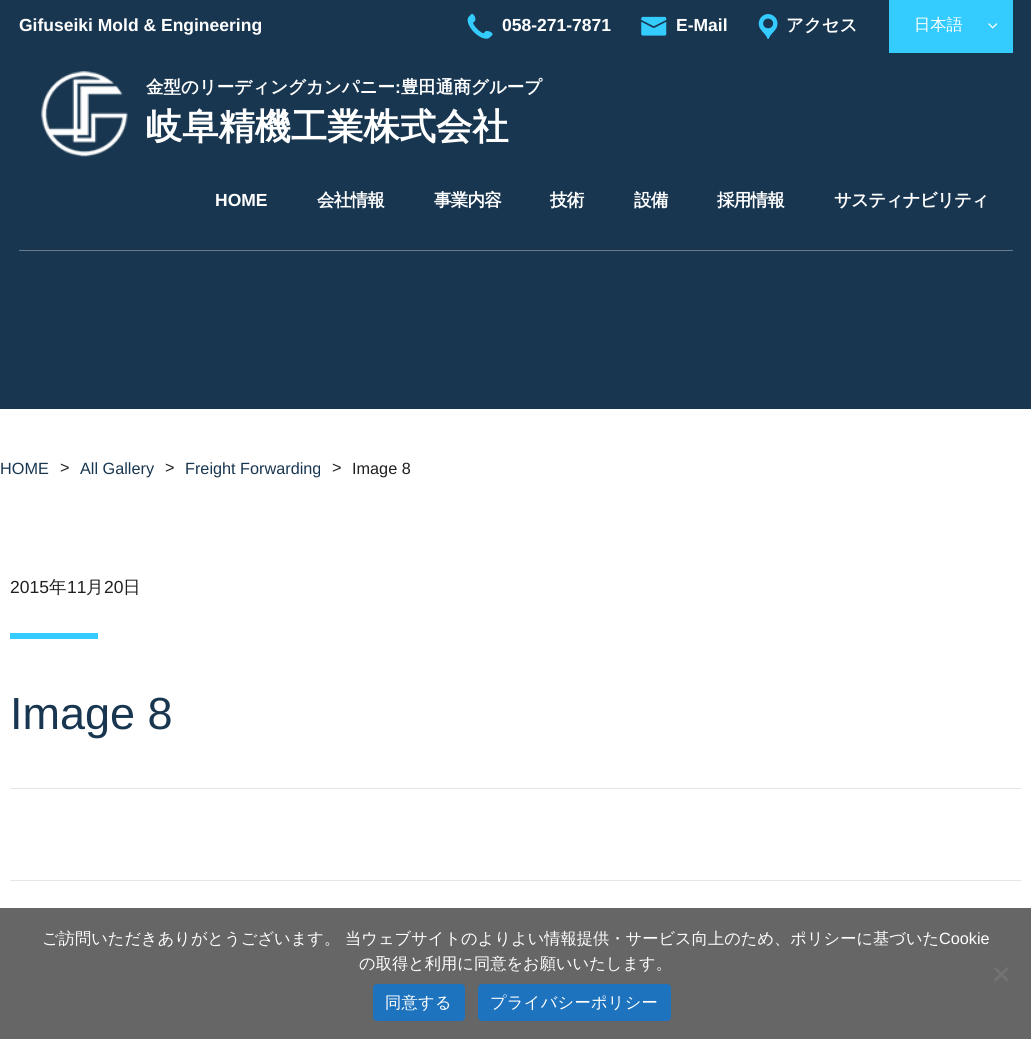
import math
import cairo

surface = cairo.ImageSurface(cairo.FORMAT_RGB24, 1031, 1039)
cr = cairo.Context(surface)
options = cairo.FontOptions()
options.set_hint_metrics(cairo.HINT_METRICS_OFF)
options.set_hint_style(cairo.HINT_STYLE_NONE)
cr.set_font_options(options)
cr.set_miter_limit(4)


def rgb(code):
    cr.set_source_rgb(*(v / 255 for v in bytes.fromhex(code[-6:])))


def tracked(x, y, s, letter, word):
    cr.move_to(x, y)
    for ch in s:
        cr.show_text(ch)
        cr.rel_move_to(letter + word * (ch == ' '), 0)


def rrect(x, y, w, h, r):
    cr.new_sub_path()
    for i, (u, v) in enumerate([(x + w - r, y + h - r), (x + r, y + h - r), (x + r, y + r), (x + w - r, y + r)]):
        cr.arc(u, v, r, i * math.pi / 2, (i + 1) * math.pi / 2)
    cr.close_path()


def image(path, x, y, w, h):
    cr.save()
    cr.set_source_surface(cairo.ImageSurface.create_from_png(path), x, y)
    cr.rectangle(x, y, w, h)
    cr.fill()
    cr.restore()


rgb("#ffffff")
cr.paint()
rgb("#183650")
cr.rectangle(0, 0, 1031, 409)
cr.fill()
image("img/1.png", 467, 13, 26, 26)
image("img/2.png", 641, 16, 26, 20)
image("img/3.png", 758, 14, 20, 25)
rgb("#34ccff")
cr.rectangle(889, 0, 124, 53)
cr.fill()
image("img/4.png", 988, 23, 10, 6)
rgb("#697c8d")
cr.rectangle(19, 250, 994, 1)
cr.fill()
image("img/5.png", 41, 71, 87, 86)
for x, y, w, h, color in [
    (10, 633, 88, 6, "#34ccff"),
    (10, 788, 1011, 1, "#e6e6e6"),
    (10, 880, 1011, 1, "#e6e6e6"),
    (0, 908, 1031, 131, "#666666"),
]:
    rgb(color)
    cr.rectangle(x, y, w, h)
    cr.fill()
rgb("#737373")
cr.new_path()
cr.move_to(1007, 967)
cr.line_to(1009, 968.5)
cr.line_to(995.5, 982)
cr.line_to(993.5, 980)
cr.close_path()
cr.fill()
cr.new_path()
cr.move_to(993.5, 968.5)
cr.line_to(995.5, 967)
cr.line_to(1009, 980)
cr.line_to(1007, 982)
cr.close_path()
cr.fill()
rgb("#1e73be")
rrect(373, 984, 92, 37, 4)
cr.fill()
rrect(478, 984, 193, 37, 4)
cr.fill()
cr.select_font_face("Liberation Sans", cairo.FONT_SLANT_NORMAL, cairo.FONT_WEIGHT_BOLD)
cr.set_font_size(17.5)
rgb("#ffffff")
for x, y, s in [
    (19, 31, "Gifuseiki Mold & Engineering"),
    (502, 31, "058-271-7871"),
    (676, 31, "E-Mail"),
]:
    cr.move_to(x, y)
    cr.show_text(s)
cr.select_font_face("WenQuanYi Zen Hei", cairo.FONT_SLANT_NORMAL, cairo.FONT_WEIGHT_BOLD)
cr.move_to(786, 31)
cr.show_text("アクセス")
cr.select_font_face("WenQuanYi Zen Hei Medium")
cr.set_font_size(16.25)
cr.move_to(914, 30)
cr.show_text("日本語")
cr.select_font_face("WenQuanYi Zen Hei", cairo.FONT_SLANT_NORMAL, cairo.FONT_WEIGHT_BOLD)
cr.set_font_size(17.5)
cr.move_to(146, 93)
cr.show_text("金型のリーディングカンパニー")
cr.select_font_face("Liberation Sans", cairo.FONT_SLANT_NORMAL, cairo.FONT_WEIGHT_BOLD)
cr.move_to(395, 93)
cr.show_text(":")
cr.select_font_face("WenQuanYi Zen Hei", cairo.FONT_SLANT_NORMAL, cairo.FONT_WEIGHT_BOLD)
cr.move_to(401, 93)
cr.show_text("豊田通商グループ")
cr.set_font_size(36.25)
cr.move_to(146, 139)
cr.show_text("岐阜精機工業株式会社")
cr.select_font_face("Liberation Sans", cairo.FONT_SLANT_NORMAL, cairo.FONT_WEIGHT_BOLD)
cr.set_font_size(17.5)
cr.move_to(215, 206)
cr.show_text("HOME")
cr.select_font_face("WenQuanYi Zen Hei", cairo.FONT_SLANT_NORMAL, cairo.FONT_WEIGHT_BOLD)
for x, y, s in [
    (317, 206, "会社情報"),
    (434, 206, "事業内容"),
    (550, 206, "技術"),
    (634, 206, "設備"),
    (717, 206, "採用情報"),
    (834, 206, "サスティナビリティ"),
]:
    tracked(x, y, s, -0.75, 0)
cr.select_font_face("Liberation Sans")
cr.set_font_size(16.25)
rgb("#183650")
cr.move_to(0, 474)
cr.show_text("HOME")
rgb("#202020")
cr.move_to(60, 473)
cr.show_text(">")
rgb("#183650")
cr.move_to(80, 474)
cr.show_text("All Gallery")
rgb("#202020")
cr.move_to(165, 473)
cr.show_text(">")
rgb("#183650")
cr.move_to(185, 474)
cr.show_text("Freight Forwarding")
rgb("#202020")
cr.move_to(332, 473)
cr.show_text(">")
cr.move_to(352, 474)
cr.show_text("Image 8")
cr.set_font_size(17.5)
cr.move_to(10, 593)
cr.show_text("2015")
cr.select_font_face("WenQuanYi Zen Hei Medium")
cr.move_to(49, 593)
cr.show_text("年")
cr.select_font_face("Liberation Sans")
cr.move_to(67, 593)
cr.show_text("11")
cr.select_font_face("WenQuanYi Zen Hei Medium")
cr.move_to(86, 593)
cr.show_text("月")
cr.select_font_face("Liberation Sans")
cr.move_to(104, 593)
cr.show_text("20")
cr.select_font_face("WenQuanYi Zen Hei Medium")
cr.move_to(123, 593)
cr.show_text("日")
cr.select_font_face("Liberation Sans")
cr.set_font_size(45)
rgb("#183650")
cr.move_to(10, 729)
cr.show_text("Image 8")
cr.select_font_face("WenQuanYi Zen Hei Medium")
cr.set_font_size(16.25)
rgb("#ffffff")
cr.move_to(42, 944)
cr.show_text("ご訪問いただきありがとうございます。 当ウェブサイトのよりよい情報提供・サービス向上のため、ポリシーに基づいた")
cr.select_font_face("Liberation Sans")
cr.move_to(939, 944)
cr.show_text("Cookie")
cr.select_font_face("WenQuanYi Zen Hei Medium")
cr.move_to(359, 969)
cr.show_text("の取得と利用に同意をお願いいたします。")
tracked(385, 1008, "同意する", 0.25, 0)
tracked(490, 1008, "プライバシーポリシー", 0.25, 0)
surface.write_to_png("page.png")
